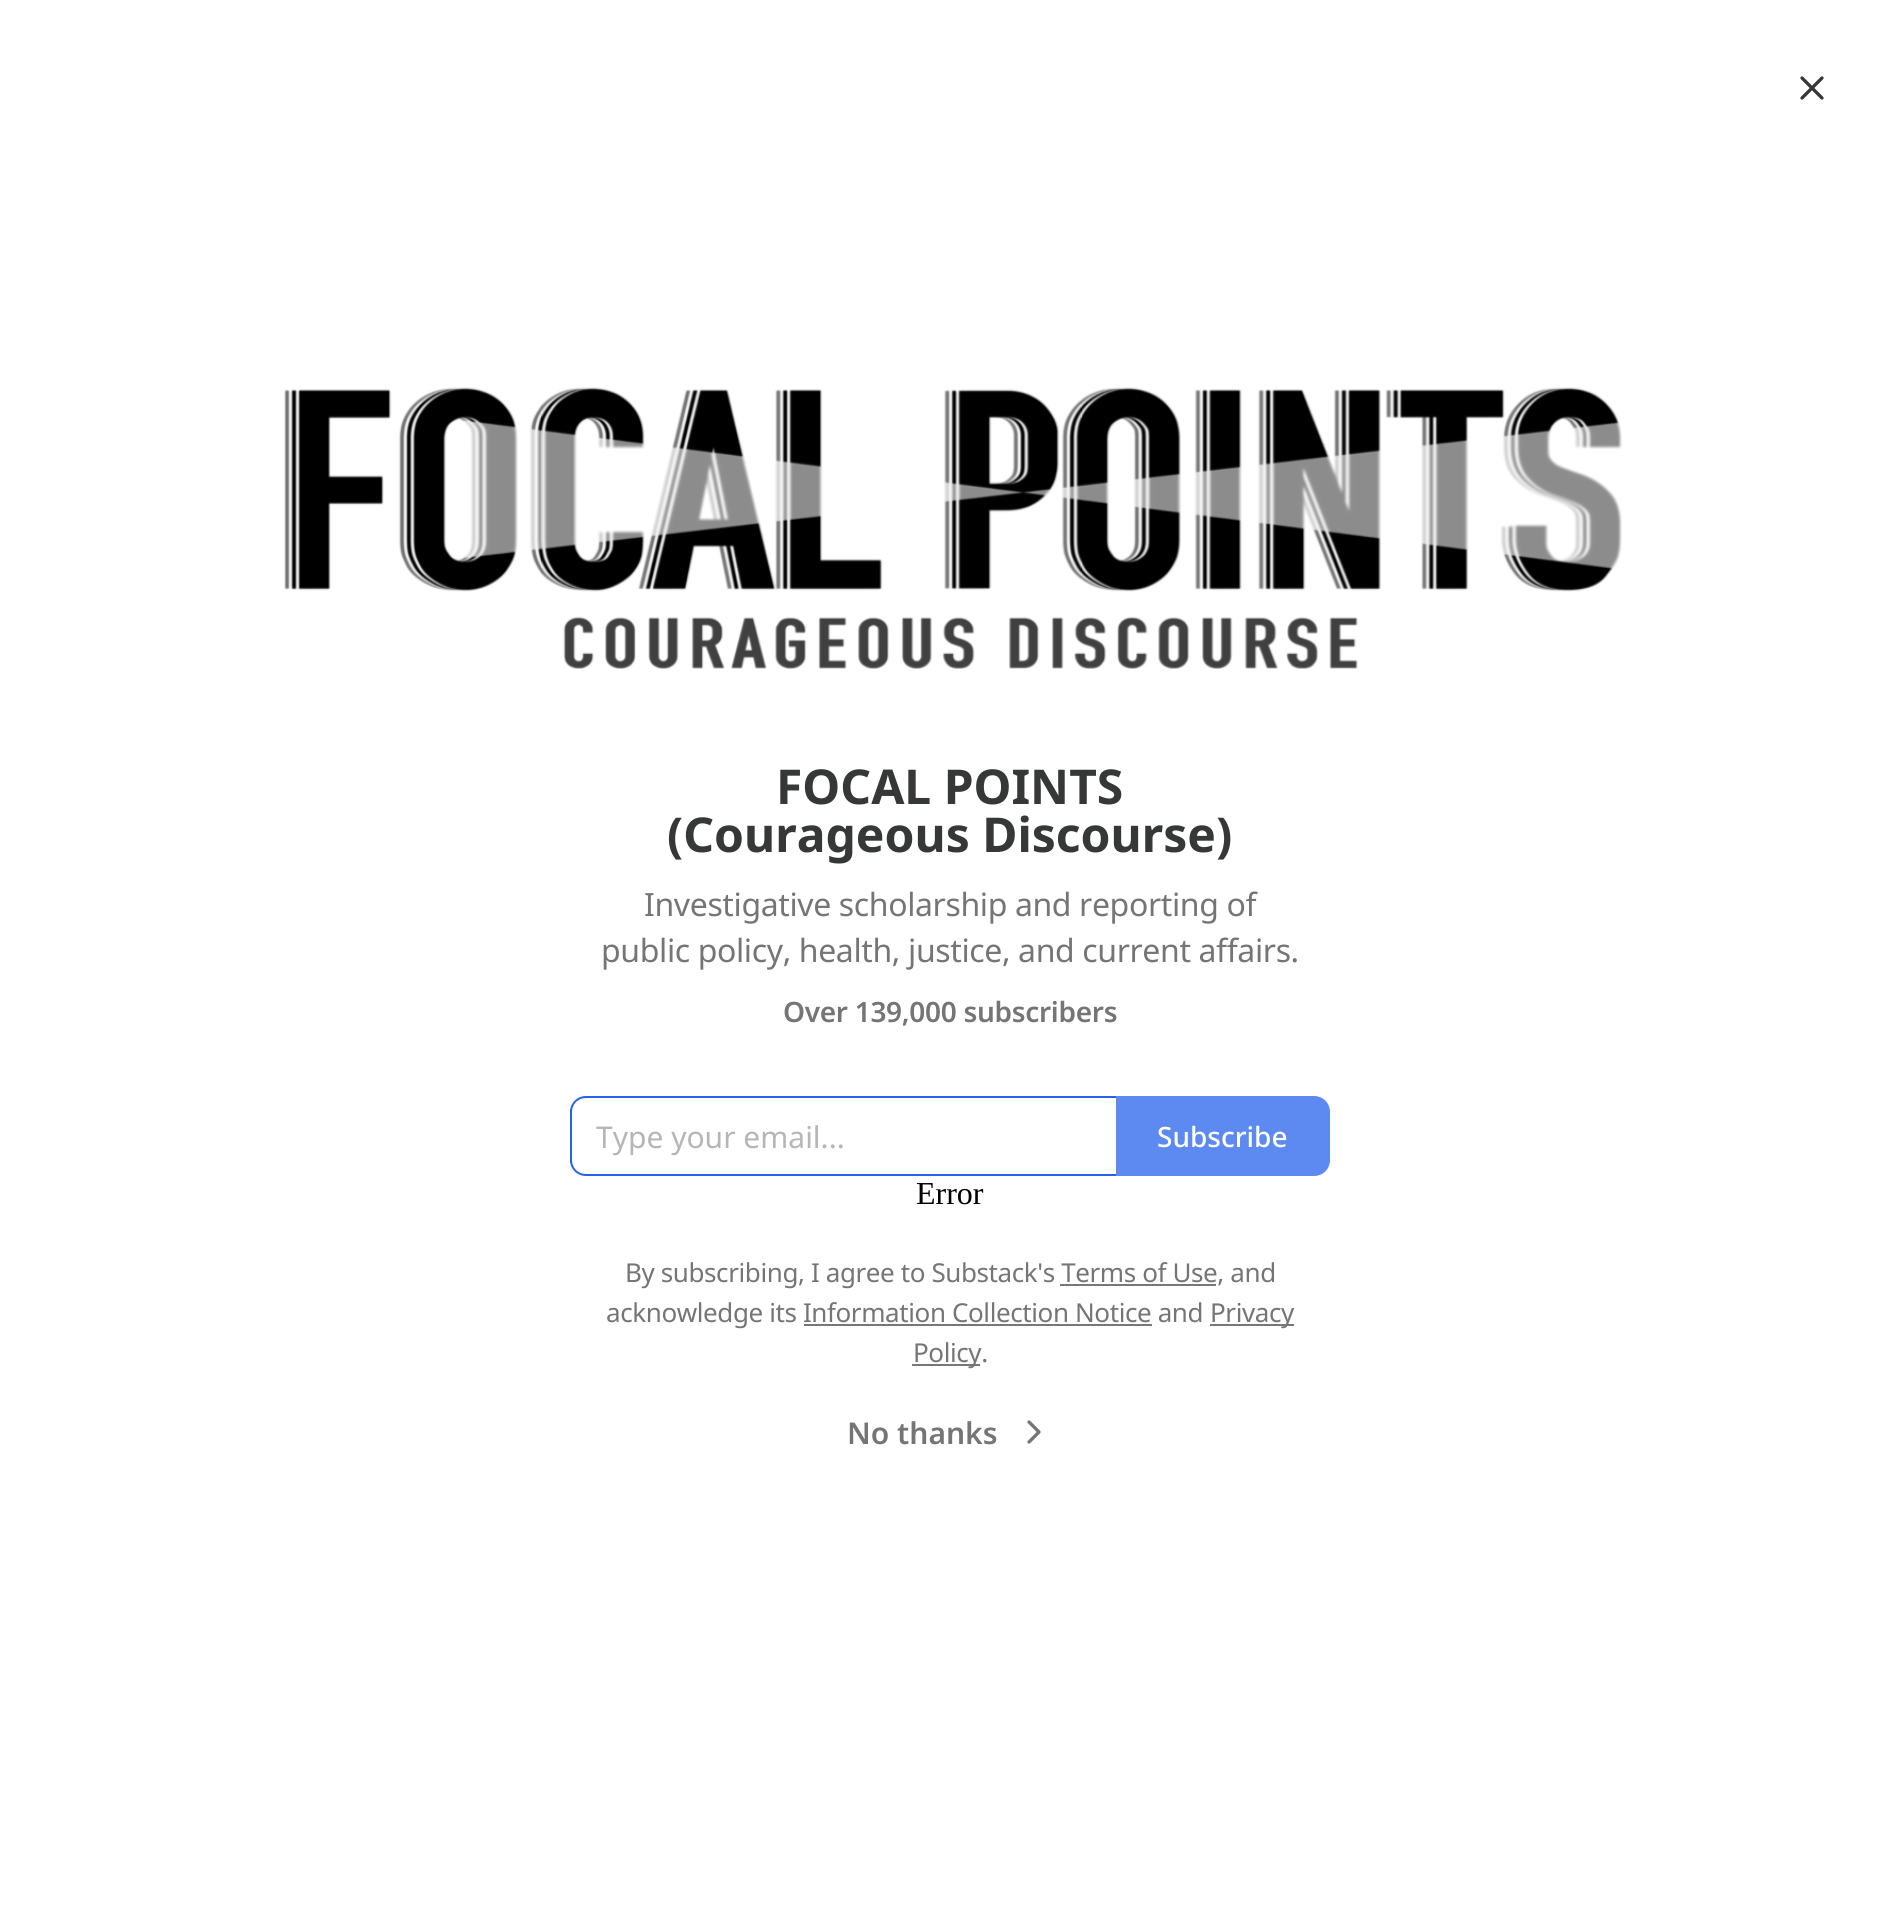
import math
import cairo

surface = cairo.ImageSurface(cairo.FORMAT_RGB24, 1899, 1925)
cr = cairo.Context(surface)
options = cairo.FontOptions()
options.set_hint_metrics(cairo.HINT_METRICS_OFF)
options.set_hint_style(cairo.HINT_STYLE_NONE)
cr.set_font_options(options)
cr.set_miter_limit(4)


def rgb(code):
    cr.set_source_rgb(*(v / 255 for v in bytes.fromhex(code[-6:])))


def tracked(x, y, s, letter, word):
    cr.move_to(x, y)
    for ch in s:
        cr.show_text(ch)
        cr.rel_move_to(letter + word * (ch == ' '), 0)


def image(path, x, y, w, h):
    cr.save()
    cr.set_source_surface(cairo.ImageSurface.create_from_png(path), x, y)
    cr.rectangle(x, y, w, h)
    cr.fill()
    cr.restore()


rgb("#ffffff")
cr.paint()
cr.new_path()
cr.move_to(1822, 78)
cr.line_to(1802, 98)
cr.move_to(1802, 78)
cr.line_to(1822, 98)
rgb("#363737")
cr.set_line_width(3.3)
cr.set_line_cap(cairo.LINE_CAP_ROUND)
cr.set_line_join(cairo.LINE_JOIN_ROUND)
cr.stroke()
image("img/1.png", 284, 387, 1338, 282)
rgb("#2563eb")
cr.set_fill_rule(cairo.FILL_RULE_EVEN_ODD)
cr.new_path()
cr.move_to(586, 1096)
cr.line_to(1116, 1096)
cr.line_to(1116, 1176)
cr.line_to(586, 1176)
cr.curve_to(577, 1176, 570, 1169, 570, 1160)
cr.line_to(570, 1112)
cr.curve_to(570, 1103, 577, 1096, 586, 1096)
cr.close_path()
cr.move_to(586, 1098)
cr.line_to(1116, 1098)
cr.line_to(1116, 1174)
cr.line_to(586, 1174)
cr.curve_to(578, 1174, 572, 1168, 572, 1160)
cr.line_to(572, 1112)
cr.curve_to(572, 1104, 578, 1098, 586, 1098)
cr.close_path()
cr.fill()
rgb("#5c8af0")
cr.new_path()
cr.move_to(1117, 1097)
cr.line_to(1314, 1097)
cr.curve_to(1322.5, 1097, 1329, 1103.5, 1329, 1112)
cr.line_to(1329, 1160)
cr.curve_to(1329, 1168.5, 1322.5, 1175, 1314, 1175)
cr.line_to(1117, 1175)
cr.close_path()
cr.fill_preserve()
cr.set_line_width(2)
cr.set_line_cap(cairo.LINE_CAP_BUTT)
cr.set_line_join(cairo.LINE_JOIN_MITER)
cr.stroke()
rgb("#777777")
cr.rectangle(1210, 1324, 84, 2)
cr.fill()
cr.rectangle(912, 1364, 68, 2)
cr.fill()
cr.new_path()
cr.move_to(1029, 1442)
cr.line_to(1039, 1432)
cr.line_to(1029, 1422)
rgb("#757575")
cr.set_line_width(3.3)
cr.set_line_cap(cairo.LINE_CAP_ROUND)
cr.set_line_join(cairo.LINE_JOIN_ROUND)
cr.stroke()
cr.select_font_face("Noto Sans", cairo.FONT_SLANT_NORMAL, cairo.FONT_WEIGHT_BOLD)
cr.set_font_size(48)
rgb("#363737")
cr.move_to(776, 804)
cr.show_text("FOCAL POINTS")
cr.move_to(667, 852)
cr.show_text("(Courageous Discourse)")
cr.select_font_face("Noto Sans")
cr.set_font_size(32)
rgb("#757575")
tracked(644, 916, "Investigative scholarship and reporting of", -0.38, 0)
tracked(601, 962, "public policy, health, justice, and current affairs.", -0.38, 0)
cr.select_font_face("Noto Sans SemiBold")
cr.set_font_size(28)
tracked(783, 1022, "Over 139,000 subscribers", -0.3, 0)
cr.select_font_face("Noto Sans")
cr.set_font_size(30)
rgb("#b6b6b6")
cr.move_to(596, 1148)
cr.show_text("Type your email...")
cr.select_font_face("Noto Sans Medium")
cr.set_font_size(28)
rgb("#ffffff")
cr.move_to(1157, 1147)
cr.show_text("Subscribe")
cr.select_font_face("Liberation Serif")
cr.set_font_size(32)
rgb("#000000")
cr.move_to(916, 1204)
cr.show_text("Error")
cr.select_font_face("Noto Sans")
cr.set_font_size(26)
rgb("#757575")
tracked(625, 1282, "By subscribing, I agree to Substack's Terms of Use, and", -0.4, 0)
rgb("#777777")
cr.rectangle(1060, 1284, 156, 2)
cr.fill()
rgb("#757575")
tracked(606, 1322, "acknowledge its Information Collection Notice and", -0.4, 0)
tracked(1210, 1322, "Privacy", -0.4, 0)
rgb("#777777")
cr.rectangle(804, 1324, 348, 2)
cr.fill()
rgb("#757575")
tracked(913, 1362, "Policy.", -0.4, 0)
cr.select_font_face("Noto Sans SemiBold")
cr.set_font_size(30)
cr.move_to(847, 1444)
cr.show_text("No thanks")
surface.write_to_png("page.png")
